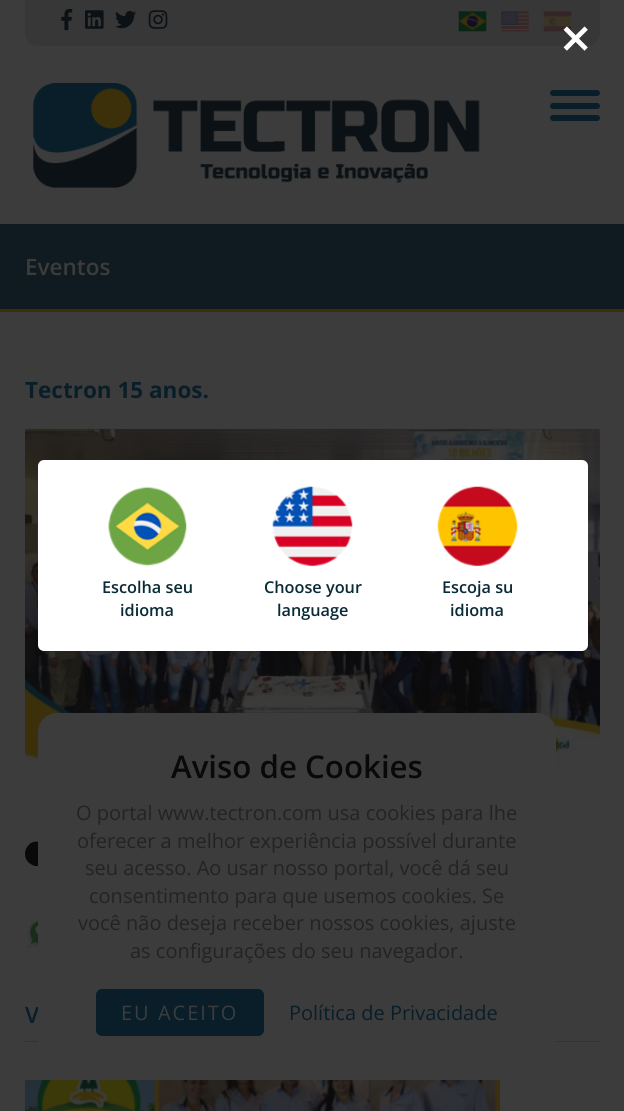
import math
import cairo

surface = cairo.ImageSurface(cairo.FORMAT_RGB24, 624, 1111)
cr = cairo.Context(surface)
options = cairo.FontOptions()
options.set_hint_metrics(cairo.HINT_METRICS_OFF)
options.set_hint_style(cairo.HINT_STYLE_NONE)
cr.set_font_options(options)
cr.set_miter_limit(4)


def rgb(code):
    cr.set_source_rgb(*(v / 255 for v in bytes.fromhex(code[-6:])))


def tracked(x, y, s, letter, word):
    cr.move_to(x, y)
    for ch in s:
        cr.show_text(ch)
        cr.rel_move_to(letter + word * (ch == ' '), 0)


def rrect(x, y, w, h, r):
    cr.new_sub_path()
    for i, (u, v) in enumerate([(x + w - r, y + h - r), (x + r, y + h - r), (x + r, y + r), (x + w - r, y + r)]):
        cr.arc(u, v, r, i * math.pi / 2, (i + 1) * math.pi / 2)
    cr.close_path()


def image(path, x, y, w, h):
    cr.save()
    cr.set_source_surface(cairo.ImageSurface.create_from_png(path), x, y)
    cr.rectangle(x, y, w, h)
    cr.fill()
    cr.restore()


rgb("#3c3c3c")
cr.paint()
rgb("#373737")
cr.new_path()
cr.move_to(25, 0)
cr.line_to(600, 0)
cr.line_to(600, 33)
cr.curve_to(600, 40, 594, 46, 587, 46)
cr.line_to(38, 46)
cr.curve_to(31, 46, 25, 40, 25, 33)
cr.close_path()
cr.fill()
image("img/1.png", 61, 8, 12, 23)
image("img/2.png", 85, 10, 19, 19)
image("img/3.png", 115, 10, 22, 19)
image("img/4.png", 148, 10, 20, 19)
image("img/5.png", 458, 11, 29, 21)
image("img/6.png", 501, 11, 28, 21)
image("img/7.png", 543, 11, 29, 21)
image("img/8.png", 33, 83, 447, 105)
rgb("#091e29")
rrect(550, 90, 50, 6, 3)
cr.fill()
rrect(550, 103, 50, 6, 3)
cr.fill()
rrect(550, 115, 50, 6, 3)
cr.fill()
rgb("#0f1b21")
cr.rectangle(0, 224, 624, 85)
cr.fill()
rgb("#3b3009")
cr.rectangle(0, 309, 624, 3)
cr.fill()
image("img/12.png", 25, 428, 575, 346)
rgb("#ffffff")
rrect(38, 460, 550, 191, 6)
cr.fill()
image("img/9.png", 108, 486, 79, 80)
image("img/10.png", 272, 486, 81, 81)
image("img/11.png", 437, 486, 81, 81)
image("img/13.png", 25, 841, 13, 25)
image("img/14.png", 26, 918, 12, 30)
rgb("#323232")
cr.rectangle(25, 1041, 575, 1)
cr.fill()
image("img/15.png", 25, 1080, 475, 31)
cr.select_font_face("Open Sans SemiBold")
cr.set_font_size(22.5)
rgb("#3c3c3c")
cr.move_to(25, 275)
cr.show_text("Eventos")
cr.set_font_size(55)
rgb("#ffffff")
tracked(560, 58, "×", 2, 0)
cr.set_font_size(16.25)
rgb("#092a36")
for x, y, s in [
    (102, 593, "Escolha seu"),
    (120, 616, "idioma"),
    (264, 593, "Choose your"),
    (277, 616, "language"),
    (442, 593, "Escoja su"),
    (450, 616, "idioma"),
]:
    cr.move_to(x, y)
    cr.show_text(s)
cr.select_font_face("Open Sans", cairo.FONT_SLANT_NORMAL, cairo.FONT_WEIGHT_BOLD)
cr.set_font_size(22.5)
rgb("#091e29")
cr.move_to(25, 398)
cr.show_text("Tectron 15 anos.")
cr.select_font_face("Open Sans SemiBold")
cr.move_to(25, 1023)
cr.show_text("V")
rgb("#3c3c3c")
rrect(38, 713, 518, 361, 19)
cr.fill()
cr.set_font_size(31.25)
rgb("#090909")
cr.move_to(171, 778)
cr.show_text("Aviso de Cookies")
cr.select_font_face("Open Sans")
cr.set_font_size(20)
rgb("#232323")
for x, y, s in [
    (76, 820, "O portal www.tectron.com usa cookies para lhe"),
    (77, 848, "oferecer a melhor experiência possível durante"),
    (85, 875, "seu acesso. Ao usar nosso portal, você dá seu"),
    (89, 903, "consentimento para que usemos cookies. Se"),
    (78, 930, "você não deseja receber nossos cookies, ajuste"),
    (130, 958, "as configurações do seu navegador."),
]:
    cr.move_to(x, y)
    cr.show_text(s)
rgb("#091e29")
rrect(96, 989, 168, 47, 6)
cr.fill()
rgb("#3c3c3c")
tracked(121, 1020, "EU ACEITO", 2, 0)
rgb("#091e29")
cr.move_to(289, 1020)
cr.show_text("Política de Privacidade")
surface.write_to_png("page.png")
